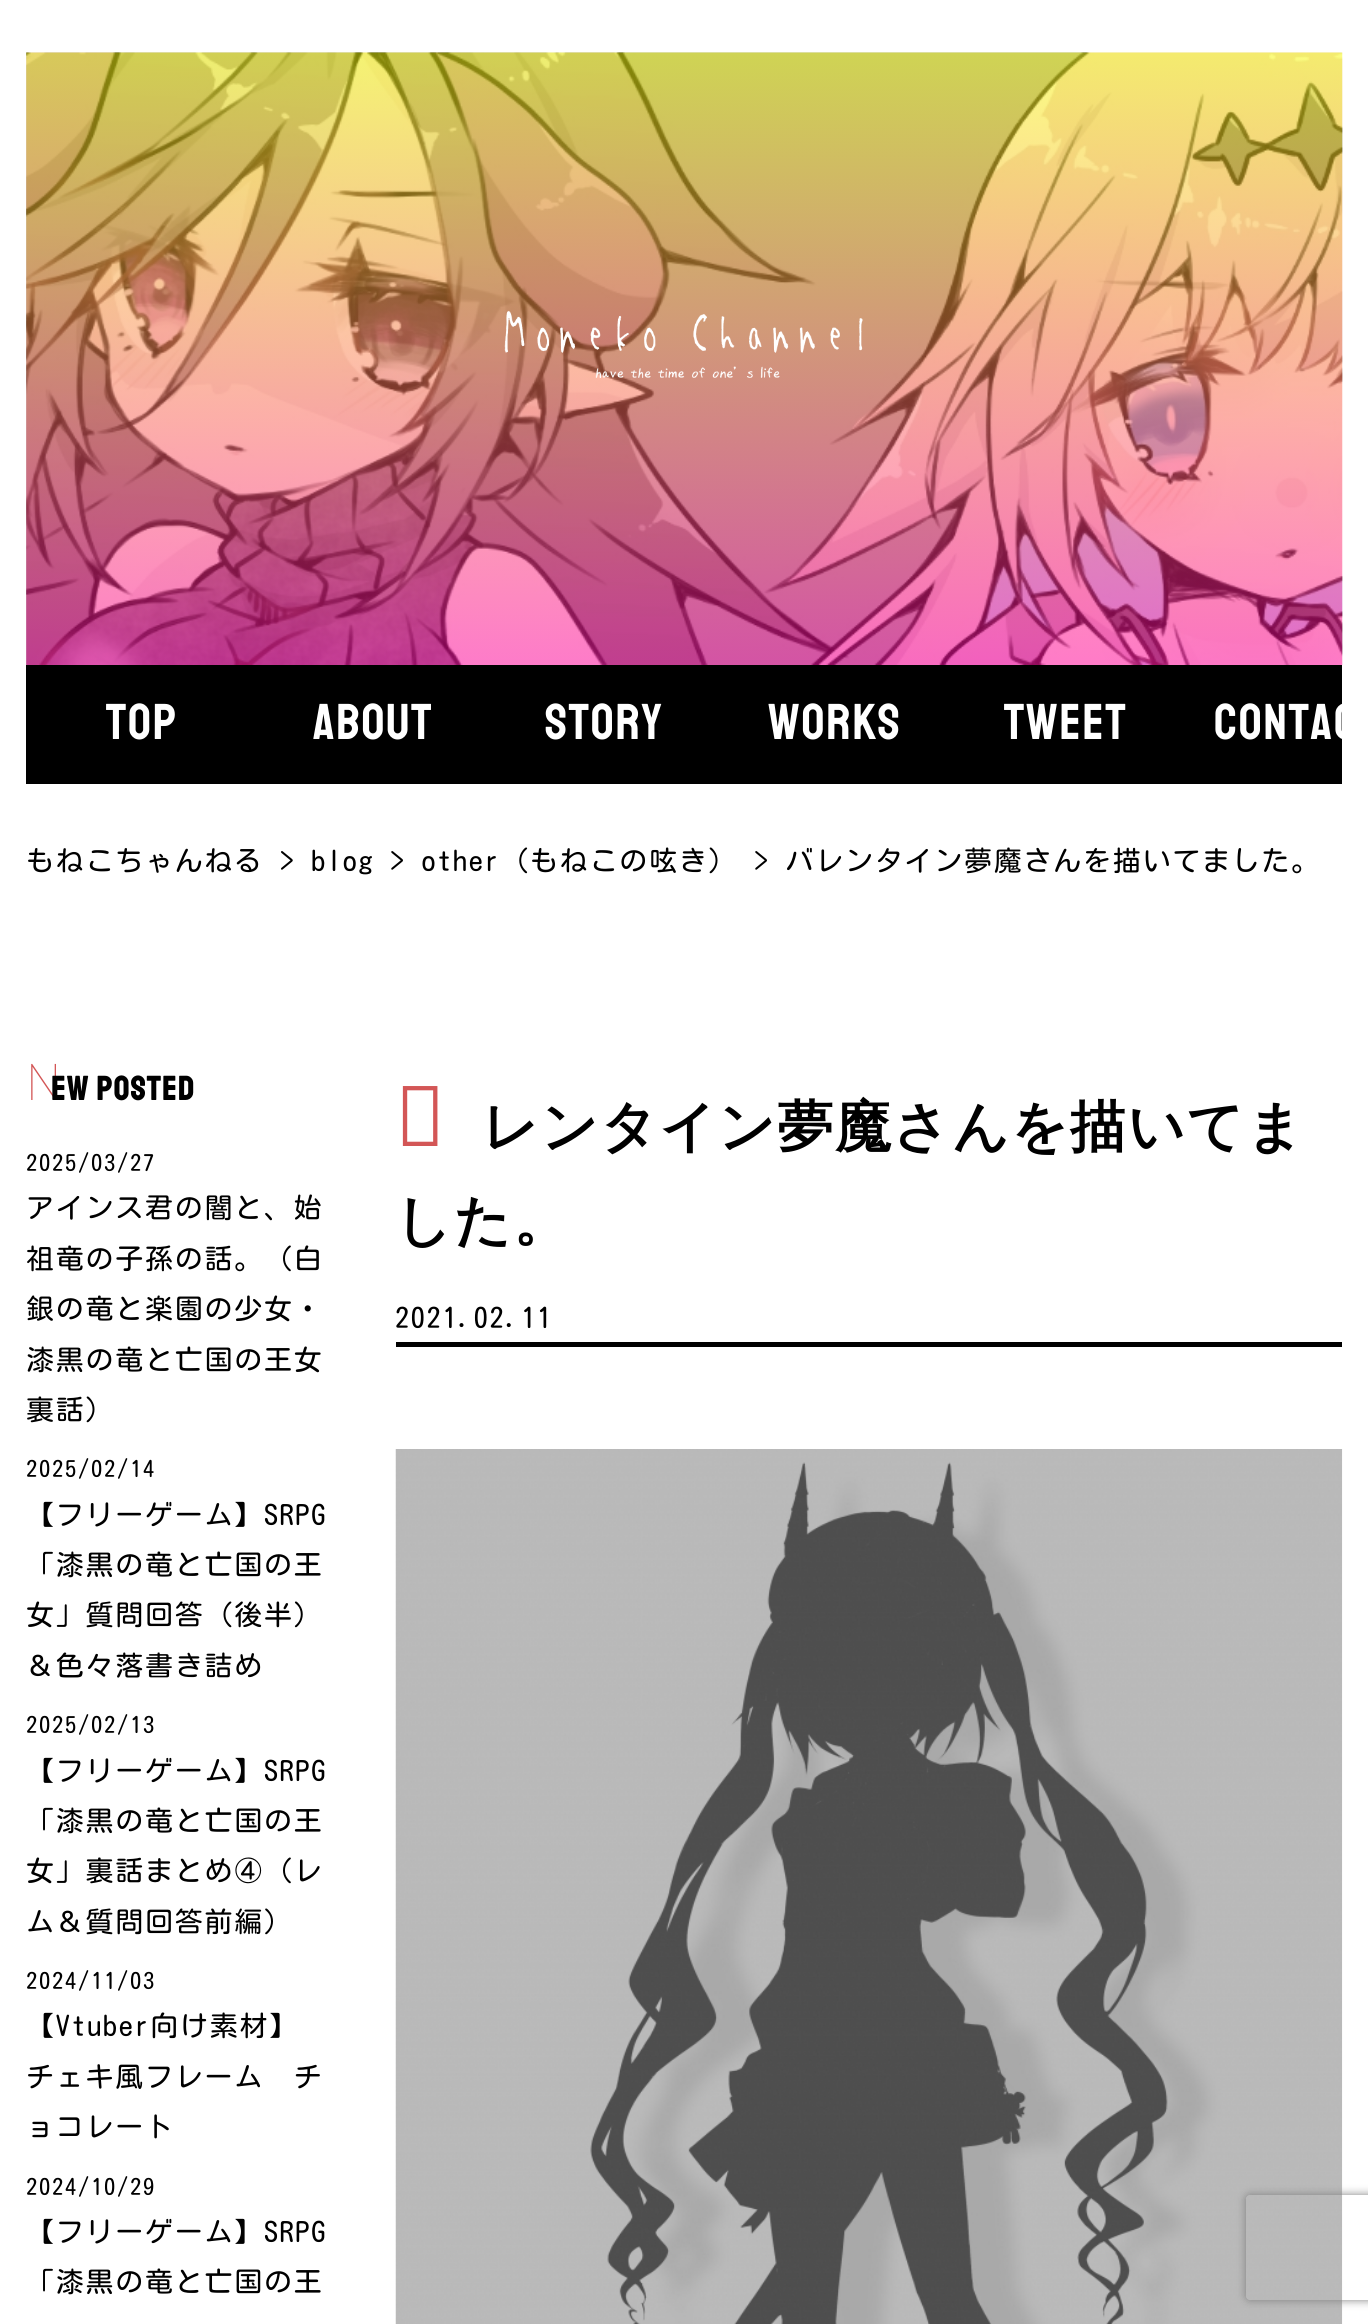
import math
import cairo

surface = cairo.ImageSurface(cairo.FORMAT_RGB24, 1368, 2324)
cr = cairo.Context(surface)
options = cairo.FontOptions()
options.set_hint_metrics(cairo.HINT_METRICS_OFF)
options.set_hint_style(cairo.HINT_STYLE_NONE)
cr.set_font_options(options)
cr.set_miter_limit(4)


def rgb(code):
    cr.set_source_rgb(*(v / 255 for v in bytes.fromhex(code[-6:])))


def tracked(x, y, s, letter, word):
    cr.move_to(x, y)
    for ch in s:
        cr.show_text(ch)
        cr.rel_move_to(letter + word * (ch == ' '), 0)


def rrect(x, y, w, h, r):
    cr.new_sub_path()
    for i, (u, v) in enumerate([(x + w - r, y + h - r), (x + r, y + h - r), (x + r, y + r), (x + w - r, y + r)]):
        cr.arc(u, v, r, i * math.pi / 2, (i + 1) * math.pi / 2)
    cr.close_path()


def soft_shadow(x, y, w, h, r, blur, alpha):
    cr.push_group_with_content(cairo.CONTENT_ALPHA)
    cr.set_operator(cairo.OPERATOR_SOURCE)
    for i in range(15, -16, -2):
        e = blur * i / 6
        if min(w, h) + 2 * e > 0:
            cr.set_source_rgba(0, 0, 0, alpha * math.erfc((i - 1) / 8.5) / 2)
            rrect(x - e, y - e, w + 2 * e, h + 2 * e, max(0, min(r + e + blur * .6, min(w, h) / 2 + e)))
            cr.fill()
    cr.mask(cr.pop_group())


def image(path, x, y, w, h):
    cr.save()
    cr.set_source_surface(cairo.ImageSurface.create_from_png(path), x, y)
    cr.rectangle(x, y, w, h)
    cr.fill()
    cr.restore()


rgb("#ffffff")
cr.paint()
image("img/1.png", 26, 52, 1317, 613)
image("img/2.png", 504, 310, 359, 68)
rgb("#000000")
cr.rectangle(26, 665, 1316, 119)
cr.fill()
cr.rectangle(396, 1342, 946, 5)
cr.fill()
image("img/3.png", 395, 1449, 948, 875)
cr.save()
cr.set_fill_rule(cairo.FILL_RULE_EVEN_ODD)
cr.new_path()
cr.move_to(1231, 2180)
cr.line_to(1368, 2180)
cr.line_to(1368, 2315)
cr.line_to(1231, 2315)
cr.close_path()
cr.move_to(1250, 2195)
cr.line_to(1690, 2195)
cr.curve_to(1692, 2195, 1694, 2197, 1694, 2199)
cr.line_to(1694, 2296)
cr.curve_to(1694, 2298, 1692, 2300, 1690, 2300)
cr.line_to(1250, 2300)
cr.curve_to(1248, 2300, 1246, 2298, 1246, 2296)
cr.line_to(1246, 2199)
cr.curve_to(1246, 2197, 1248, 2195, 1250, 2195)
cr.close_path()
cr.clip()
rgb("#808080")
soft_shadow(1246, 2195, 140, 105, 4, 4.5, 1)
cr.restore()
cr.select_font_face("Staatliches")
cr.set_font_size(50.5)
rgb("#ffffff")
for x, y, s in [
    (106, 739, "Top"),
    (313, 739, "About"),
    (545, 739, "story"),
    (768, 739, "Works"),
    (1004, 739, "Tweet"),
    (1214, 739, "Contac"),
]:
    tracked(x, y, s, 1.75, 0)
cr.select_font_face("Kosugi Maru")
cr.set_font_size(28)
rgb("#000000")
tracked(26, 871, "もねこちゃんねる > blog > other（もねこの呟き） > バレンタイン夢魔さんを描いてました。", 1.75, 0)
cr.select_font_face("Noto Sans Thin")
cr.set_font_size(50.5)
rgb("#d35656")
tracked(26, 1100, "N", 1.75, 0)
cr.select_font_face("Staatliches", cairo.FONT_SLANT_NORMAL, cairo.FONT_WEIGHT_BOLD)
cr.set_font_size(33.5)
rgb("#000000")
tracked(51, 1100, "EW POSTED", 1.75, 0)
cr.select_font_face("Kosugi Maru")
cr.set_font_size(22.5)
tracked(26, 1171, "2025/03/27", 1.75, 0)
cr.set_font_size(28)
for x, y, s in [
    (26, 1218, "アインス君の闇と、始"),
    (26, 1269, "祖竜の子孫の話。（白"),
    (26, 1319, "銀の竜と楽園の少女・"),
    (26, 1370, "漆黒の竜と亡国の王女"),
    (26, 1420, "裏話）"),
]:
    tracked(x, y, s, 1.75, 0)
cr.set_font_size(22.5)
tracked(26, 1477, "2025/02/14", 1.75, 0)
cr.set_font_size(28)
for x, y, s in [
    (26, 1525, "【フリーゲーム】SRPG"),
    (26, 1575, "「漆黒の竜と亡国の王"),
    (26, 1625, "女」質問回答（後半）"),
    (26, 1676, "＆色々落書き詰め"),
]:
    tracked(x, y, s, 1.75, 0)
cr.set_font_size(22.5)
tracked(26, 1733, "2025/02/13", 1.75, 0)
cr.set_font_size(28)
for x, y, s in [
    (26, 1781, "【フリーゲーム】SRPG"),
    (26, 1831, "「漆黒の竜と亡国の王"),
    (26, 1881, "女」裏話まとめ④（レ"),
    (26, 1932, "ム＆質問回答前編）"),
]:
    tracked(x, y, s, 1.75, 0)
cr.set_font_size(22.5)
tracked(26, 1989, "2024/11/03", 1.75, 0)
cr.set_font_size(28)
for x, y, s in [
    (26, 2036, "【Vtuber向け素材】"),
    (26, 2087, "チェキ風フレーム　チ"),
    (26, 2137, "ョコレート"),
]:
    tracked(x, y, s, 1.75, 0)
cr.set_font_size(22.5)
tracked(26, 2195, "2024/10/29", 1.75, 0)
cr.set_font_size(28)
tracked(26, 2242, "【フリーゲーム】SRPG", 1.75, 0)
tracked(26, 2292, "「漆黒の竜と亡国の王", 1.75, 0)
cr.select_font_face("Noto Sans Thin")
cr.set_font_size(84)
rgb("#d35656")
tracked(395, 1146, "バ", 1.75, 0)
cr.select_font_face("WenQuanYi Zen Hei", cairo.FONT_SLANT_NORMAL, cairo.FONT_WEIGHT_BOLD)
cr.set_font_size(56)
rgb("#000000")
tracked(482, 1146, "レンタイン夢魔さんを描いてま", 1.75, 0)
tracked(395, 1240, "した。", 1.75, 0)
cr.select_font_face("Kosugi Maru")
cr.set_font_size(28)
tracked(395, 1328, "2021.02.11", 1.75, 0)
surface.write_to_png("page.png")
